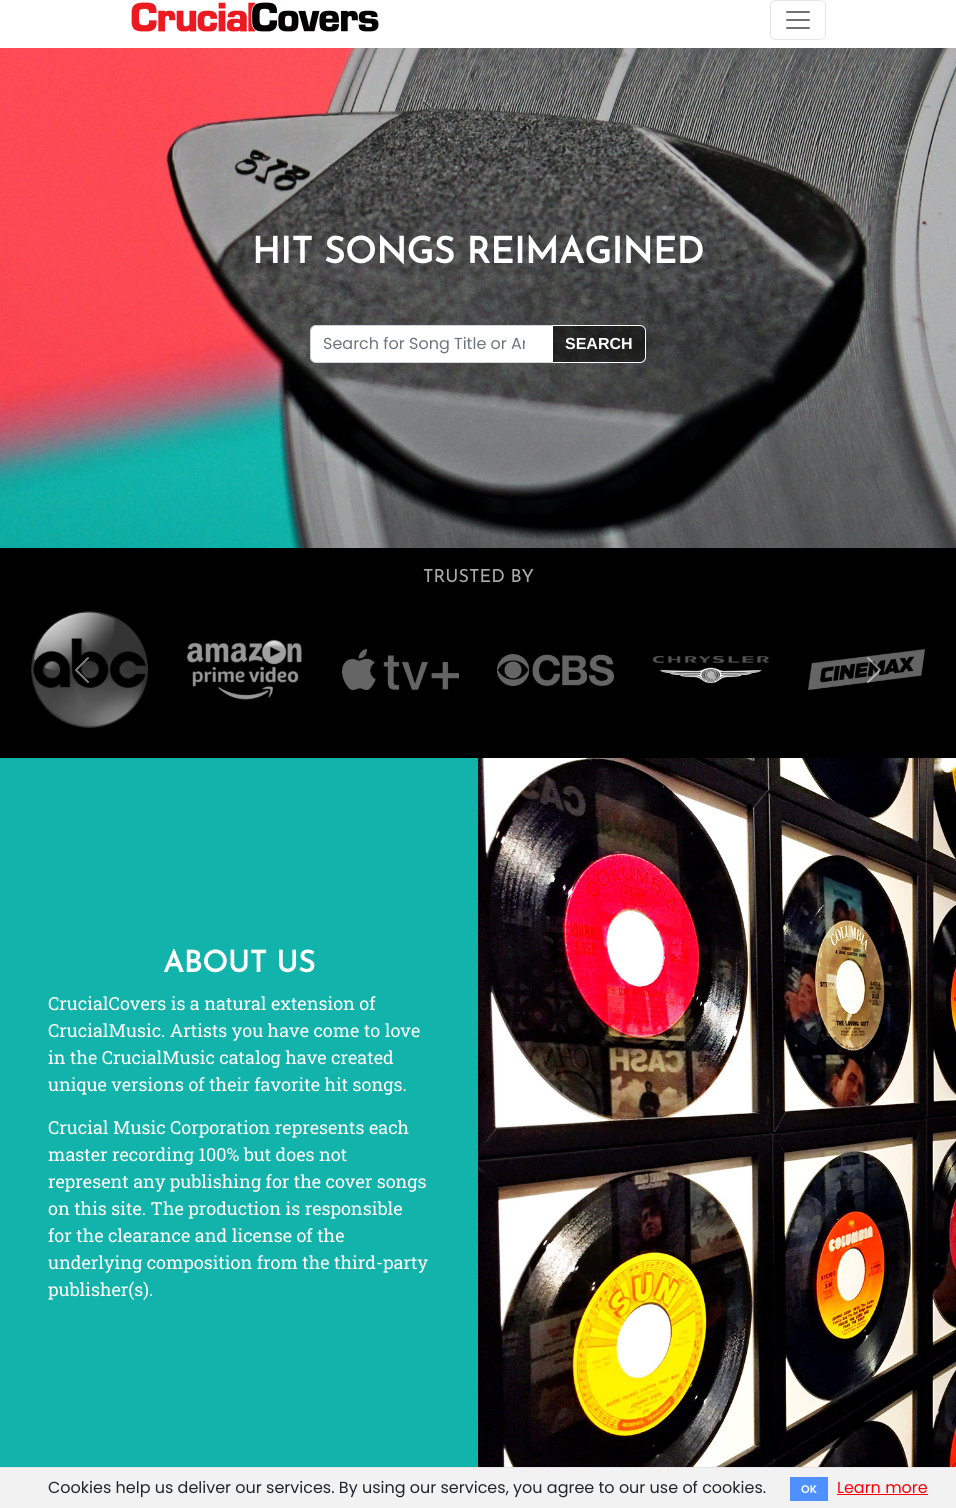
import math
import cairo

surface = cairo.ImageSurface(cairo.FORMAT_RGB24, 956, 1508)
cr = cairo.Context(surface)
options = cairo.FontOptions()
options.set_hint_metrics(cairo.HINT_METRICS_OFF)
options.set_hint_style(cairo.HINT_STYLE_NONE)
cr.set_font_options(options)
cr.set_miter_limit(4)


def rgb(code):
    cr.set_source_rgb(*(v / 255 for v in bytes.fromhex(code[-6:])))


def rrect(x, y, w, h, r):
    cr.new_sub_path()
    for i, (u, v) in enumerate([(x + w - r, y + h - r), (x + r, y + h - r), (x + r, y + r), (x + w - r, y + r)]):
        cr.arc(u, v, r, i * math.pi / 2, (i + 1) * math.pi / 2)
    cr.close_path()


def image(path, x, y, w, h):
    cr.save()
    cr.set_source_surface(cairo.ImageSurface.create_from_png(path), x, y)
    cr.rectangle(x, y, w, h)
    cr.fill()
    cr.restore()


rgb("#ffffff")
cr.paint()
image("img/1.png", 131, 2, 248, 30)
rrect(770.5, 0.5, 55, 39, 5.5)
rgb("#e6e6e6")
cr.set_line_width(1)
cr.stroke()
image("img/2.png", 786, 11, 24, 18)
image("img/3.png", 0, 48, 956, 500)
rgb("#ffffff")
cr.new_path()
cr.move_to(316, 325.5)
cr.line_to(552.5, 325.5)
cr.line_to(552.5, 362.5)
cr.line_to(316, 362.5)
cr.curve_to(313, 362.5, 310.5, 360, 310.5, 357)
cr.line_to(310.5, 331)
cr.curve_to(310.5, 328, 313, 325.5, 316, 325.5)
cr.close_path()
cr.fill_preserve()
rgb("#ced4da")
cr.stroke()
cr.set_source_rgba(0, 0, 0, 0.5)
cr.new_path()
cr.move_to(552.5, 325.5)
cr.line_to(640, 325.5)
cr.curve_to(643, 325.5, 645.5, 328, 645.5, 331)
cr.line_to(645.5, 357)
cr.curve_to(645.5, 360, 643, 362.5, 640, 362.5)
cr.line_to(552.5, 362.5)
cr.close_path()
cr.fill_preserve()
rgb("#ffffff")
cr.stroke()
rgb("#000000")
cr.rectangle(0, 548, 956, 210)
cr.fill()
image("img/4.png", 31, 611, 117, 117)
image("img/5.png", 186, 639, 116, 61)
image("img/6.png", 342, 649, 117, 41)
image("img/7.png", 497, 654, 117, 32)
image("img/8.png", 653, 656, 116, 27)
image("img/9.png", 808, 649, 117, 41)
image("img/10.png", 75, 657, 14, 26)
image("img/11.png", 867, 657, 14, 26)
rgb("#12b3ab")
cr.rectangle(0, 758, 478, 709)
cr.fill()
image("img/12.png", 478, 758, 478, 709)
for x, y, w, h, color in [
    (0, 1468, 956, 40, "#f2f2f2"),
    (0, 1467, 956, 1, "#e4e4e4"),
    (790, 1477, 38, 24, "#4d90fe"),
    (837, 1494, 91, 1, "#ff0000"),
]:
    rgb(color)
    cr.rectangle(x, y, w, h)
    cr.fill()
cr.select_font_face("Josefin Sans", cairo.FONT_SLANT_NORMAL, cairo.FONT_WEIGHT_BOLD)
cr.set_font_size(36.3)
rgb("#ffffff")
cr.move_to(252, 263)
cr.show_text("HIT SONGS REIMAGINED")
cr.save()
cr.rectangle(323, 331, 202, 25)
cr.clip()
cr.select_font_face("Poppins")
cr.set_font_size(16)
rgb("#6c757d")
cr.move_to(323, 349)
cr.show_text("Search for Song Title or Ar")
cr.restore()
cr.select_font_face("Liberation Sans", cairo.FONT_SLANT_NORMAL, cairo.FONT_WEIGHT_BOLD)
cr.set_font_size(16)
cr.move_to(565, 349)
cr.show_text("SEARCH")
cr.select_font_face("Josefin Sans Thin")
cr.set_font_size(18)
rgb("#aaaaaa")
cr.move_to(423, 582)
cr.show_text("TRUSTED BY")
cr.select_font_face("Josefin Sans", cairo.FONT_SLANT_NORMAL, cairo.FONT_WEIGHT_BOLD)
cr.set_font_size(29.75)
rgb("#ffffff")
cr.move_to(163, 972)
cr.show_text("ABOUT US")
cr.select_font_face("Roboto Slab")
cr.set_font_size(18)
for x, y, s in [
    (48, 1010, "CrucialCovers is a natural extension of"),
    (48, 1037, "CrucialMusic. Artists you have come to love"),
    (48, 1064, "in the CrucialMusic catalog have created"),
    (48, 1091, "unique versions of their favorite hit songs."),
    (48, 1134, "Crucial Music Corporation represents each"),
    (48, 1161, "master recording 100% but does not"),
    (48, 1188, "represent any publishing for the cover songs"),
    (48, 1215, "on this site. The production is responsible"),
    (48, 1242, "for the clearance and license of the"),
    (48, 1269, "underlying composition from the third-party"),
    (48, 1296, "publisher(s)."),
]:
    cr.move_to(x, y)
    cr.show_text(s)
cr.select_font_face("Poppins")
cr.set_font_size(16)
rgb("#212529")
cr.move_to(48, 1493)
cr.show_text("Cookies help us deliver our services. By using our services, you agree to our use of cookies.")
cr.select_font_face("Poppins SemiBold")
cr.set_font_size(11)
rgb("#ffffff")
cr.move_to(801, 1493)
cr.show_text("OK")
cr.select_font_face("Poppins")
cr.set_font_size(16)
rgb("#ff0000")
cr.move_to(837, 1493)
cr.show_text("Learn more")
surface.write_to_png("page.png")
